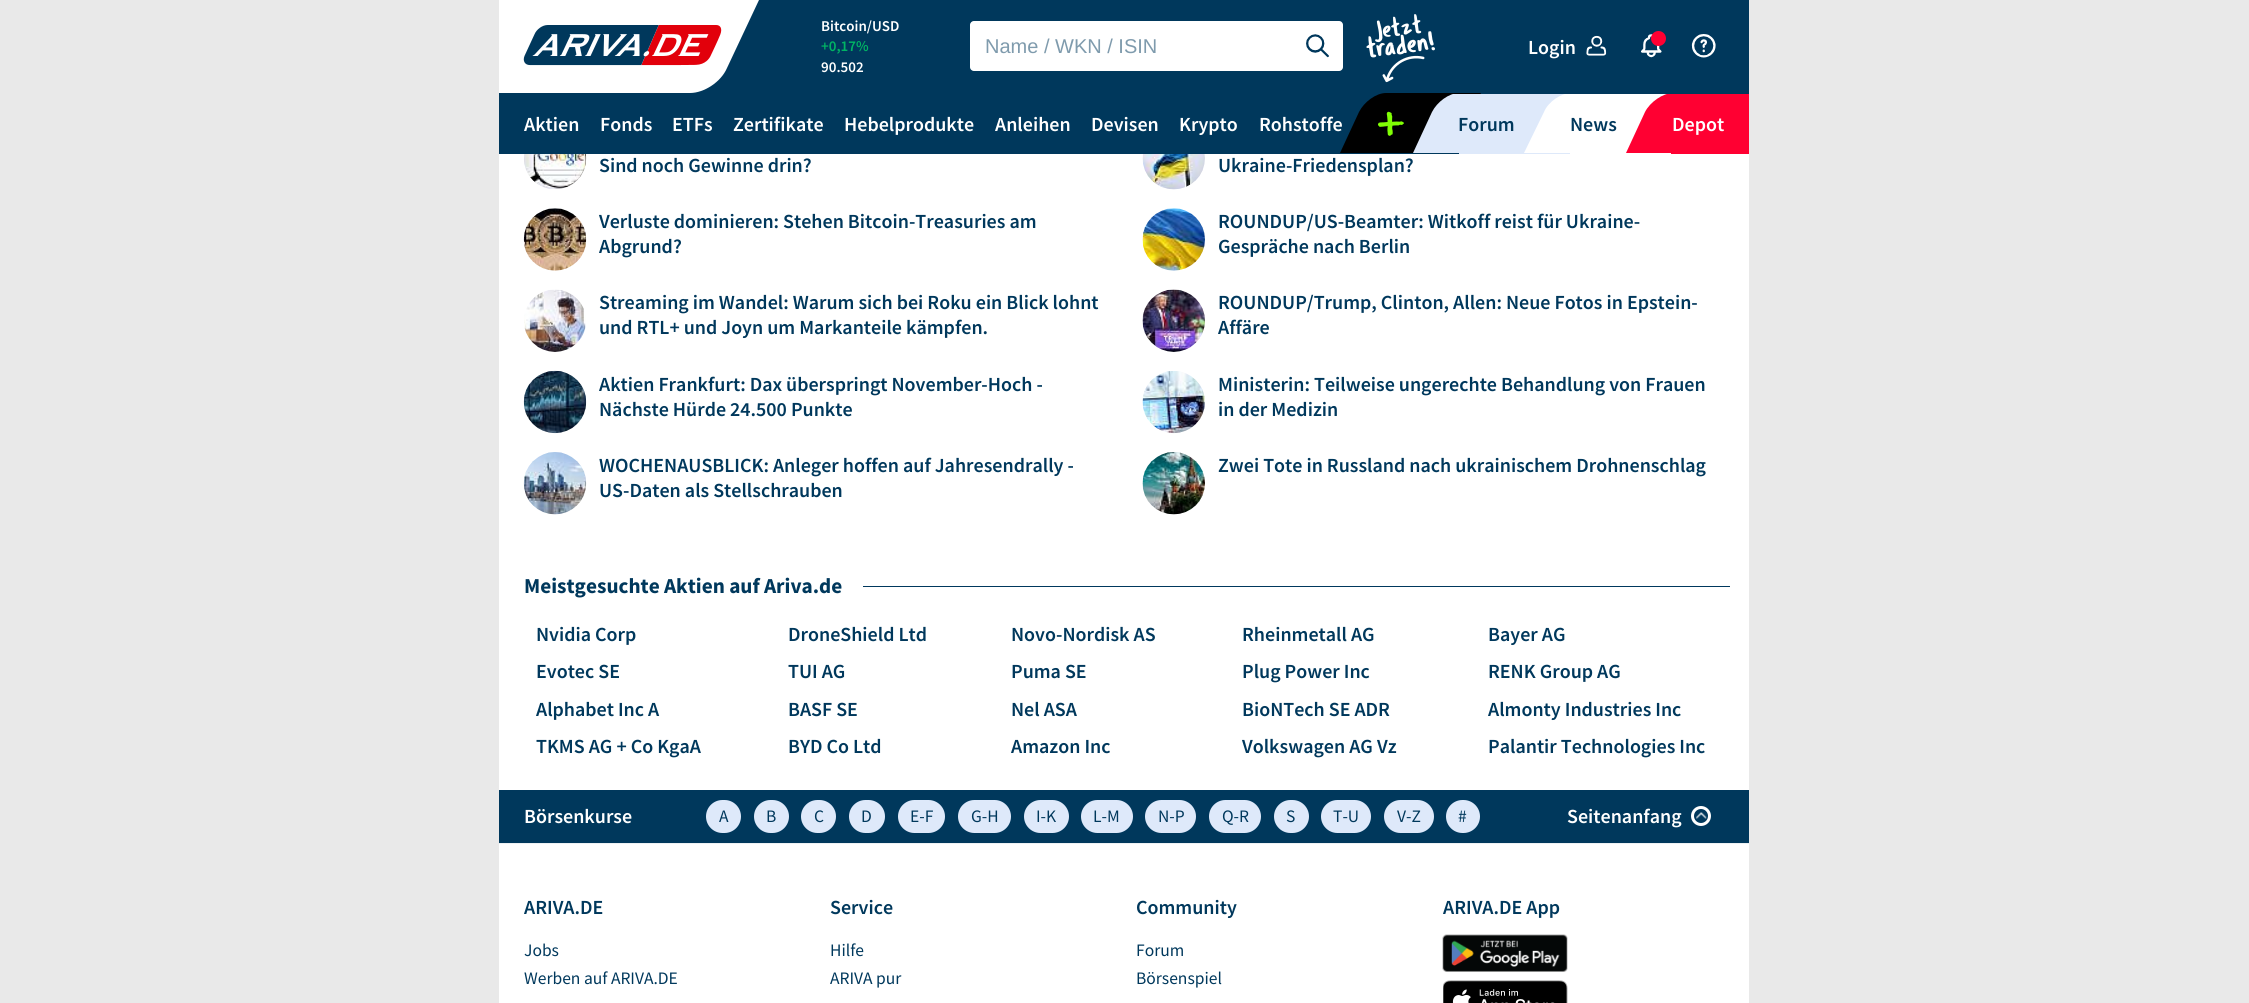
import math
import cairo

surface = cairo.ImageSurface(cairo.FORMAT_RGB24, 2249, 1003)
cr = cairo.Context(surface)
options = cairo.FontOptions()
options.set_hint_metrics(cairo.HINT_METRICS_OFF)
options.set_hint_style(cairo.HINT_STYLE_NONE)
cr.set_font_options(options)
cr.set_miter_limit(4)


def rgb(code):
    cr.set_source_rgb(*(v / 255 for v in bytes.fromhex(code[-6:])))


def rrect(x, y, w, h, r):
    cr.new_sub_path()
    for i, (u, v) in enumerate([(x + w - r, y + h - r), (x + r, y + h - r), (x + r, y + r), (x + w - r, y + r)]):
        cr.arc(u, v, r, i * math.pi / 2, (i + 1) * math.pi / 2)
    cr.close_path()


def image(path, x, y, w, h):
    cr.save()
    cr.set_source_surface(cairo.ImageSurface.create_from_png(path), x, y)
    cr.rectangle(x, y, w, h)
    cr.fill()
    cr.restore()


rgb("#e9e9e9")
cr.paint()
rgb("#ffffff")
cr.rectangle(499, 154, 1250, 849)
cr.fill()
rgb("#00385c")
cr.rectangle(499, 0, 1250, 94)
cr.fill()
cr.save()
cr.rectangle(499, 0, 260, 94)
cr.clip()
rgb("#ffffff")
cr.new_path()
cr.move_to(499, 0)
cr.line_to(759, 0)
cr.line_to(727, 68)
cr.curve_to(721, 82, 704, 93, 690, 93)
cr.line_to(455, 93)
cr.close_path()
cr.fill()
cr.restore()
image("img/1.png", 523, 25, 199, 41)
rgb("#ffffff")
rrect(970, 21, 373, 50, 4)
cr.fill()
image("img/2.png", 1306, 34, 23, 24)
image("img/3.png", 1586, 35, 21, 21)
image("img/4.png", 1641, 34, 21, 24)
rgb("#ff0032")
cr.arc(1658.5, 38.5, 7.5, 0, 2 * math.pi)
cr.fill()
image("img/5.png", 1691, 34, 25, 24)
rgb("#00385c")
cr.rectangle(499, 94, 960, 60)
cr.fill()
image("img/6.png", 1366, 14, 69, 69)
for x, y, w, h, color in [
    (1459, 153, 111, 1, "#dee9fa"),
    (1570, 153, 101, 1, "#ffffff"),
    (1671, 94, 78, 60, "#ff0032"),
]:
    rgb(color)
    cr.rectangle(x, y, w, h)
    cr.fill()
image("img/8.png", 524, 154, 63, 35)
image("img/9.png", 523, 208, 64, 63)
image("img/10.png", 524, 289, 62, 63)
image("img/11.png", 523, 370, 64, 64)
image("img/12.png", 523, 452, 64, 63)
image("img/13.png", 1142, 154, 63, 36)
image("img/14.png", 1142, 208, 63, 63)
image("img/15.png", 1142, 289, 63, 63)
image("img/16.png", 1142, 371, 63, 63)
image("img/17.png", 1142, 452, 63, 63)
rgb("#00385d")
cr.rectangle(863, 586, 867, 1)
cr.fill()
rgb("#00385c")
cr.rectangle(499, 790, 1250, 53)
cr.fill()
rgb("#dee9fa")
rrect(706, 800, 35, 33, 16.5)
cr.fill()
rrect(754, 800, 35, 33, 16.5)
cr.fill()
rrect(801, 800, 35, 33, 16.5)
cr.fill()
rrect(849, 800, 36, 33, 16.5)
cr.fill()
rrect(898, 800, 47, 33, 16.5)
cr.fill()
rrect(958, 800, 53, 33, 16.5)
cr.fill()
rrect(1024, 800, 45, 33, 16.5)
cr.fill()
rrect(1081, 800, 52, 33, 16.5)
cr.fill()
rrect(1145, 800, 51, 33, 16.5)
cr.fill()
rrect(1209, 800, 52, 33, 16.5)
cr.fill()
rrect(1274, 800, 35, 33, 16.5)
cr.fill()
rrect(1321, 800, 50, 33, 16.5)
cr.fill()
rrect(1384, 800, 50, 33, 16.5)
cr.fill()
rrect(1446, 800, 34, 33, 16.5)
cr.fill()
cr.arc(1701, 816, 8.5, 0, 2 * math.pi)
rgb("#ffffff")
cr.set_line_width(3)
cr.stroke()
image("img/18.png", 1696, 812, 11, 7)
rgb("#edf1f3")
cr.rectangle(499, 843, 1250, 1)
cr.fill()
image("img/19.png", 1442, 934, 126, 38)
image("img/20.png", 1443, 980, 125, 23)
cr.select_font_face("Source Sans Pro SemiBold")
cr.set_font_size(15)
rgb("#ffffff")
cr.move_to(821, 31)
cr.show_text("Bitcoin/USD")
rgb("#00b464")
cr.move_to(821, 51)
cr.show_text("+0,17%")
rgb("#ffffff")
cr.move_to(821, 72)
cr.show_text("90.502")
cr.select_font_face("Liberation Sans")
cr.set_font_size(20)
rgb("#7f9bad")
cr.move_to(985, 53)
cr.show_text("Name / WKN / ISIN")
cr.select_font_face("Source Sans Pro SemiBold")
rgb("#ffffff")
for x, y, s in [
    (1528, 54, "Login"),
    (524, 131, "Aktien"),
    (600, 131, "Fonds"),
    (672, 131, "ETFs"),
    (733, 131, "Zertifikate"),
    (844, 131, "Hebelprodukte"),
    (995, 131, "Anleihen"),
    (1091, 131, "Devisen"),
    (1179, 131, "Krypto"),
    (1259, 131, "Rohstoffe"),
]:
    cr.move_to(x, y)
    cr.show_text(s)
rgb("#000000")
cr.new_path()
cr.move_to(1386, 93)
cr.line_to(1481, 93)
cr.line_to(1453, 153)
cr.line_to(1340, 153)
cr.line_to(1359, 112)
cr.curve_to(1364, 102, 1376, 93, 1386, 93)
cr.close_path()
cr.fill()
image("img/7.png", 1378, 111, 26, 25)
cr.save()
cr.rectangle(0, 94, 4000, 60)
cr.clip()
rgb("#dee9fa")
cr.new_path()
cr.move_to(1459, 93)
cr.line_to(1570, 93)
cr.line_to(1542, 153)
cr.line_to(1413, 153)
cr.line_to(1432, 112)
cr.curve_to(1437, 102, 1449, 93, 1459, 93)
cr.close_path()
cr.fill()
cr.restore()
rgb("#00385c")
cr.move_to(1458, 131)
cr.show_text("Forum")
cr.save()
cr.rectangle(0, 94, 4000, 60)
cr.clip()
rgb("#ffffff")
cr.new_path()
cr.move_to(1571, 93)
cr.line_to(1672, 93)
cr.line_to(1644, 153)
cr.line_to(1524, 153)
cr.line_to(1544, 112)
cr.curve_to(1548, 102, 1561, 93, 1571, 93)
cr.close_path()
cr.fill()
cr.restore()
cr.move_to(1570, 131)
cr.show_text("News")
cr.save()
cr.rectangle(0, 94, 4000, 60)
cr.clip()
rgb("#ff0032")
cr.new_path()
cr.move_to(1673, 93)
cr.line_to(1749, 93)
cr.line_to(1721, 153)
cr.line_to(1626, 153)
cr.line_to(1645, 112)
cr.curve_to(1650, 102, 1663, 93, 1673, 93)
cr.close_path()
cr.fill()
cr.restore()
rgb("#ffffff")
cr.move_to(1672, 131)
cr.show_text("Depot")
rgb("#00385c")
for x, y, s in [
    (599, 172, "Sind noch Gewinne drin?"),
    (599, 228, "Verluste dominieren: Stehen Bitcoin-Treasuries am"),
    (599, 253, "Abgrund?"),
    (599, 309, "Streaming im Wandel: Warum sich bei Roku ein Blick lohnt"),
    (599, 334, "und RTL+ und Joyn um Markanteile kämpfen."),
    (599, 391, "Aktien Frankfurt: Dax überspringt November-Hoch -"),
    (599, 416, "Nächste Hürde 24.500 Punkte"),
    (599, 472, "WOCHENAUSBLICK: Anleger hoffen auf Jahresendrally -"),
    (599, 497, "US-Daten als Stellschrauben"),
    (1218, 172, "Ukraine-Friedensplan?"),
    (1218, 228, "ROUNDUP/US-Beamter: Witkoff reist für Ukraine-"),
    (1218, 253, "Gespräche nach Berlin"),
    (1218, 309, "ROUNDUP/Trump, Clinton, Allen: Neue Fotos in Epstein-"),
    (1218, 334, "Affäre"),
    (1218, 391, "Ministerin: Teilweise ungerechte Behandlung von Frauen"),
    (1218, 416, "in der Medizin"),
    (1218, 472, "Zwei Tote in Russland nach ukrainischem Drohnenschlag"),
]:
    cr.move_to(x, y)
    cr.show_text(s)
cr.select_font_face("Source Sans Pro", cairo.FONT_SLANT_NORMAL, cairo.FONT_WEIGHT_BOLD)
cr.set_font_size(21.25)
cr.move_to(524, 593)
cr.show_text("Meistgesuchte Aktien auf Ariva.de")
cr.select_font_face("Source Sans Pro SemiBold")
cr.set_font_size(20)
for x, y, s in [
    (536, 641, "Nvidia Corp"),
    (788, 641, "DroneShield Ltd"),
    (1011, 641, "Novo-Nordisk AS"),
    (1242, 641, "Rheinmetall AG"),
    (1488, 641, "Bayer AG"),
    (536, 678, "Evotec SE"),
    (788, 678, "TUI AG"),
    (1011, 678, "Puma SE"),
    (1242, 678, "Plug Power Inc"),
    (1488, 678, "RENK Group AG"),
    (536, 716, "Alphabet Inc A"),
    (788, 716, "BASF SE"),
    (1011, 716, "Nel ASA"),
    (1242, 716, "BioNTech SE ADR"),
    (1488, 716, "Almonty Industries Inc"),
    (536, 753, "TKMS AG + Co KgaA"),
    (788, 753, "BYD Co Ltd"),
    (1011, 753, "Amazon Inc"),
    (1242, 753, "Volkswagen AG Vz"),
    (1488, 753, "Palantir Technologies Inc"),
]:
    cr.move_to(x, y)
    cr.show_text(s)
rgb("#ffffff")
cr.move_to(524, 823)
cr.show_text("Börsenkurse")
cr.select_font_face("Source Sans Pro")
cr.set_font_size(17.5)
rgb("#00385c")
for x, y, s in [
    (719, 822, "A"),
    (766, 822, "B"),
    (814, 822, "C"),
    (861, 822, "D"),
    (910, 822, "E-F"),
    (971, 822, "G-H"),
    (1036, 822, "I-K"),
    (1093, 822, "L-M"),
    (1158, 822, "N-P"),
    (1222, 822, "Q-R"),
    (1286, 822, "S"),
    (1333, 822, "T-U"),
    (1397, 822, "V-Z"),
    (1458, 822, "#"),
]:
    cr.move_to(x, y)
    cr.show_text(s)
cr.select_font_face("Source Sans Pro SemiBold")
cr.set_font_size(20)
rgb("#ffffff")
cr.move_to(1567, 823)
cr.show_text("Seitenanfang")
rgb("#00385c")
cr.move_to(524, 914)
cr.show_text("ARIVA.DE")
cr.select_font_face("Source Sans Pro")
cr.set_font_size(17.5)
cr.move_to(524, 956)
cr.show_text("Jobs")
cr.move_to(524, 984)
cr.show_text("Werben auf ARIVA.DE")
cr.select_font_face("Source Sans Pro SemiBold")
cr.set_font_size(20)
cr.move_to(830, 914)
cr.show_text("Service")
cr.select_font_face("Source Sans Pro")
cr.set_font_size(17.5)
cr.move_to(830, 956)
cr.show_text("Hilfe")
cr.move_to(830, 984)
cr.show_text("ARIVA pur")
cr.select_font_face("Source Sans Pro SemiBold")
cr.set_font_size(20)
cr.move_to(1136, 914)
cr.show_text("Community")
cr.select_font_face("Source Sans Pro")
cr.set_font_size(17.5)
cr.move_to(1136, 956)
cr.show_text("Forum")
cr.move_to(1136, 984)
cr.show_text("Börsenspiel")
cr.select_font_face("Source Sans Pro SemiBold")
cr.set_font_size(20)
cr.move_to(1443, 914)
cr.show_text("ARIVA.DE App")
surface.write_to_png("page.png")
